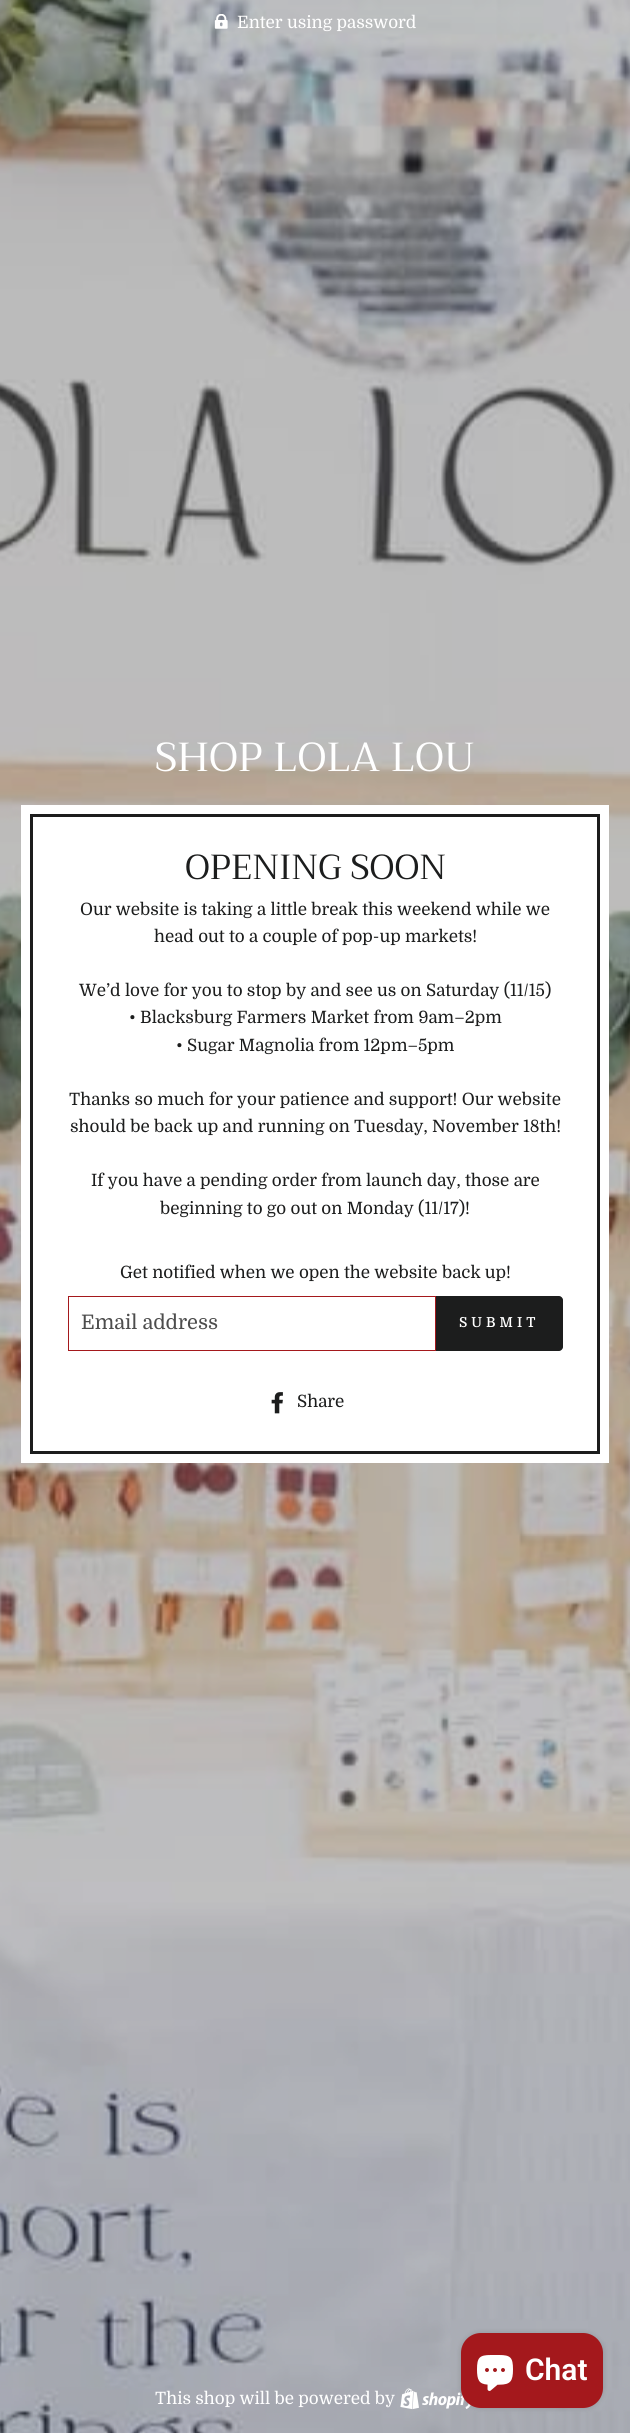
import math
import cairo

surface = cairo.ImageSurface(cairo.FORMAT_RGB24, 630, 2433)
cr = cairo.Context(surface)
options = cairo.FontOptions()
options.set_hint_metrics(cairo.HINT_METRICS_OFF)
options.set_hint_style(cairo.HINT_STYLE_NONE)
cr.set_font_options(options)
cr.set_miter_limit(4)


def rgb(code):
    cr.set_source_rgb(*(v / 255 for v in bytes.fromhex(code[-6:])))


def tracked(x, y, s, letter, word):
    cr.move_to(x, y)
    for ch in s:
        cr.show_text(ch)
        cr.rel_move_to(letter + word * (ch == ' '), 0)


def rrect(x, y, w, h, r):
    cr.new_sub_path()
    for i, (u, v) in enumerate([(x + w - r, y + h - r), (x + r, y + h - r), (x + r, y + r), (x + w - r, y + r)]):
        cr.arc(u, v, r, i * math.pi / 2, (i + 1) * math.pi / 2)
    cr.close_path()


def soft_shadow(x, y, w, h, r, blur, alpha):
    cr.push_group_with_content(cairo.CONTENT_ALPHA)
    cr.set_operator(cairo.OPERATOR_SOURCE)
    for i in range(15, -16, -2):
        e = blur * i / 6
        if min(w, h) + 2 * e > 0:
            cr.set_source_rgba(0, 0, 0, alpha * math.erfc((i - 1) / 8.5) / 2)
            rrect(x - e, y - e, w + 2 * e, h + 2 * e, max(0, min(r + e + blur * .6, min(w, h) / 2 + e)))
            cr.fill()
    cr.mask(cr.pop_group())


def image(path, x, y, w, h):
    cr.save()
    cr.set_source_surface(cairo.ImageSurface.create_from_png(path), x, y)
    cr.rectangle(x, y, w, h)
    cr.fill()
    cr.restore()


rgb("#ffffff")
cr.paint()
image("img/1.png", 0, 0, 630, 2433)
image("img/2.png", 214, 14, 14, 15)
rgb("#ffffff")
cr.rectangle(21, 805, 588, 658)
cr.fill()
cr.rectangle(31.5, 815.5, 567, 637)
rgb("#1c1d1d")
cr.set_line_width(3)
cr.stroke()
cr.rectangle(68.5, 1296.5, 367, 54)
rgb("#a4181c")
cr.set_line_width(1)
cr.stroke()
rgb("#1c1d1d")
cr.new_path()
cr.move_to(436, 1296)
cr.line_to(559, 1296)
cr.curve_to(561, 1296, 563, 1298, 563, 1300)
cr.line_to(563, 1347)
cr.curve_to(563, 1349, 561, 1351, 559, 1351)
cr.line_to(436, 1351)
cr.close_path()
cr.fill()
image("img/3.png", 271, 1392, 12, 22)
image("img/4.png", 400, 2388, 71, 22)
rgb("#000000")
soft_shadow(461, 2333, 142, 75, 20, 3, 0.15)
rgb("#a4181c")
rrect(461, 2333, 142, 75, 20)
cr.fill()
image("img/5.png", 477, 2355, 36, 36)
cr.select_font_face("Domine")
cr.set_font_size(17)
rgb("#ffffff")
cr.move_to(237, 28)
cr.show_text("Enter using password")
cr.select_font_face("Trirong")
cr.set_font_size(40.5)
cr.move_to(155, 771)
cr.show_text("SHOP LOLA LOU")
cr.set_font_size(34.75)
rgb("#1c1d1d")
cr.move_to(185, 879)
cr.show_text("OPENING SOON")
cr.select_font_face("Domine")
cr.set_font_size(17)
for x, y, s in [
    (80, 915, "Our website is taking a little break this weekend while we"),
    (154, 942, "head out to a couple of pop-up markets!"),
    (79, 996, "We’d love for you to stop by and see us on Saturday (11/15)"),
    (129, 1023, "• Blacksburg Farmers Market from 9am–2pm"),
    (176, 1051, "• Sugar Magnolia from 12pm–5pm"),
    (69, 1105, "Thanks so much for your patience and support! Our website"),
    (70, 1132, "should be back up and running on Tuesday, November 18th!"),
    (91, 1186, "If you have a pending order from launch day, those are"),
    (160, 1214, "beginning to go out on Monday (11/17)!"),
    (120, 1278, "Get notified when we open the website back up!"),
]:
    cr.move_to(x, y)
    cr.show_text(s)
cr.set_font_size(20)
rgb("#4d4d4d")
cr.move_to(81, 1329)
cr.show_text("Email address")
cr.select_font_face("Domine SemiBold")
cr.set_font_size(13.75)
rgb("#ffffff")
tracked(459, 1327, "SUBMIT", 4, 0)
cr.select_font_face("Domine")
cr.set_font_size(17)
rgb("#1c1d1d")
cr.move_to(297, 1407)
cr.show_text("Share")
rgb("#ffffff")
cr.move_to(155, 2404)
cr.show_text("This shop will be powered by")
cr.select_font_face("Roboto SemiBold")
cr.set_font_size(30)
cr.move_to(525, 2380)
cr.show_text("Chat")
surface.write_to_png("page.png")
